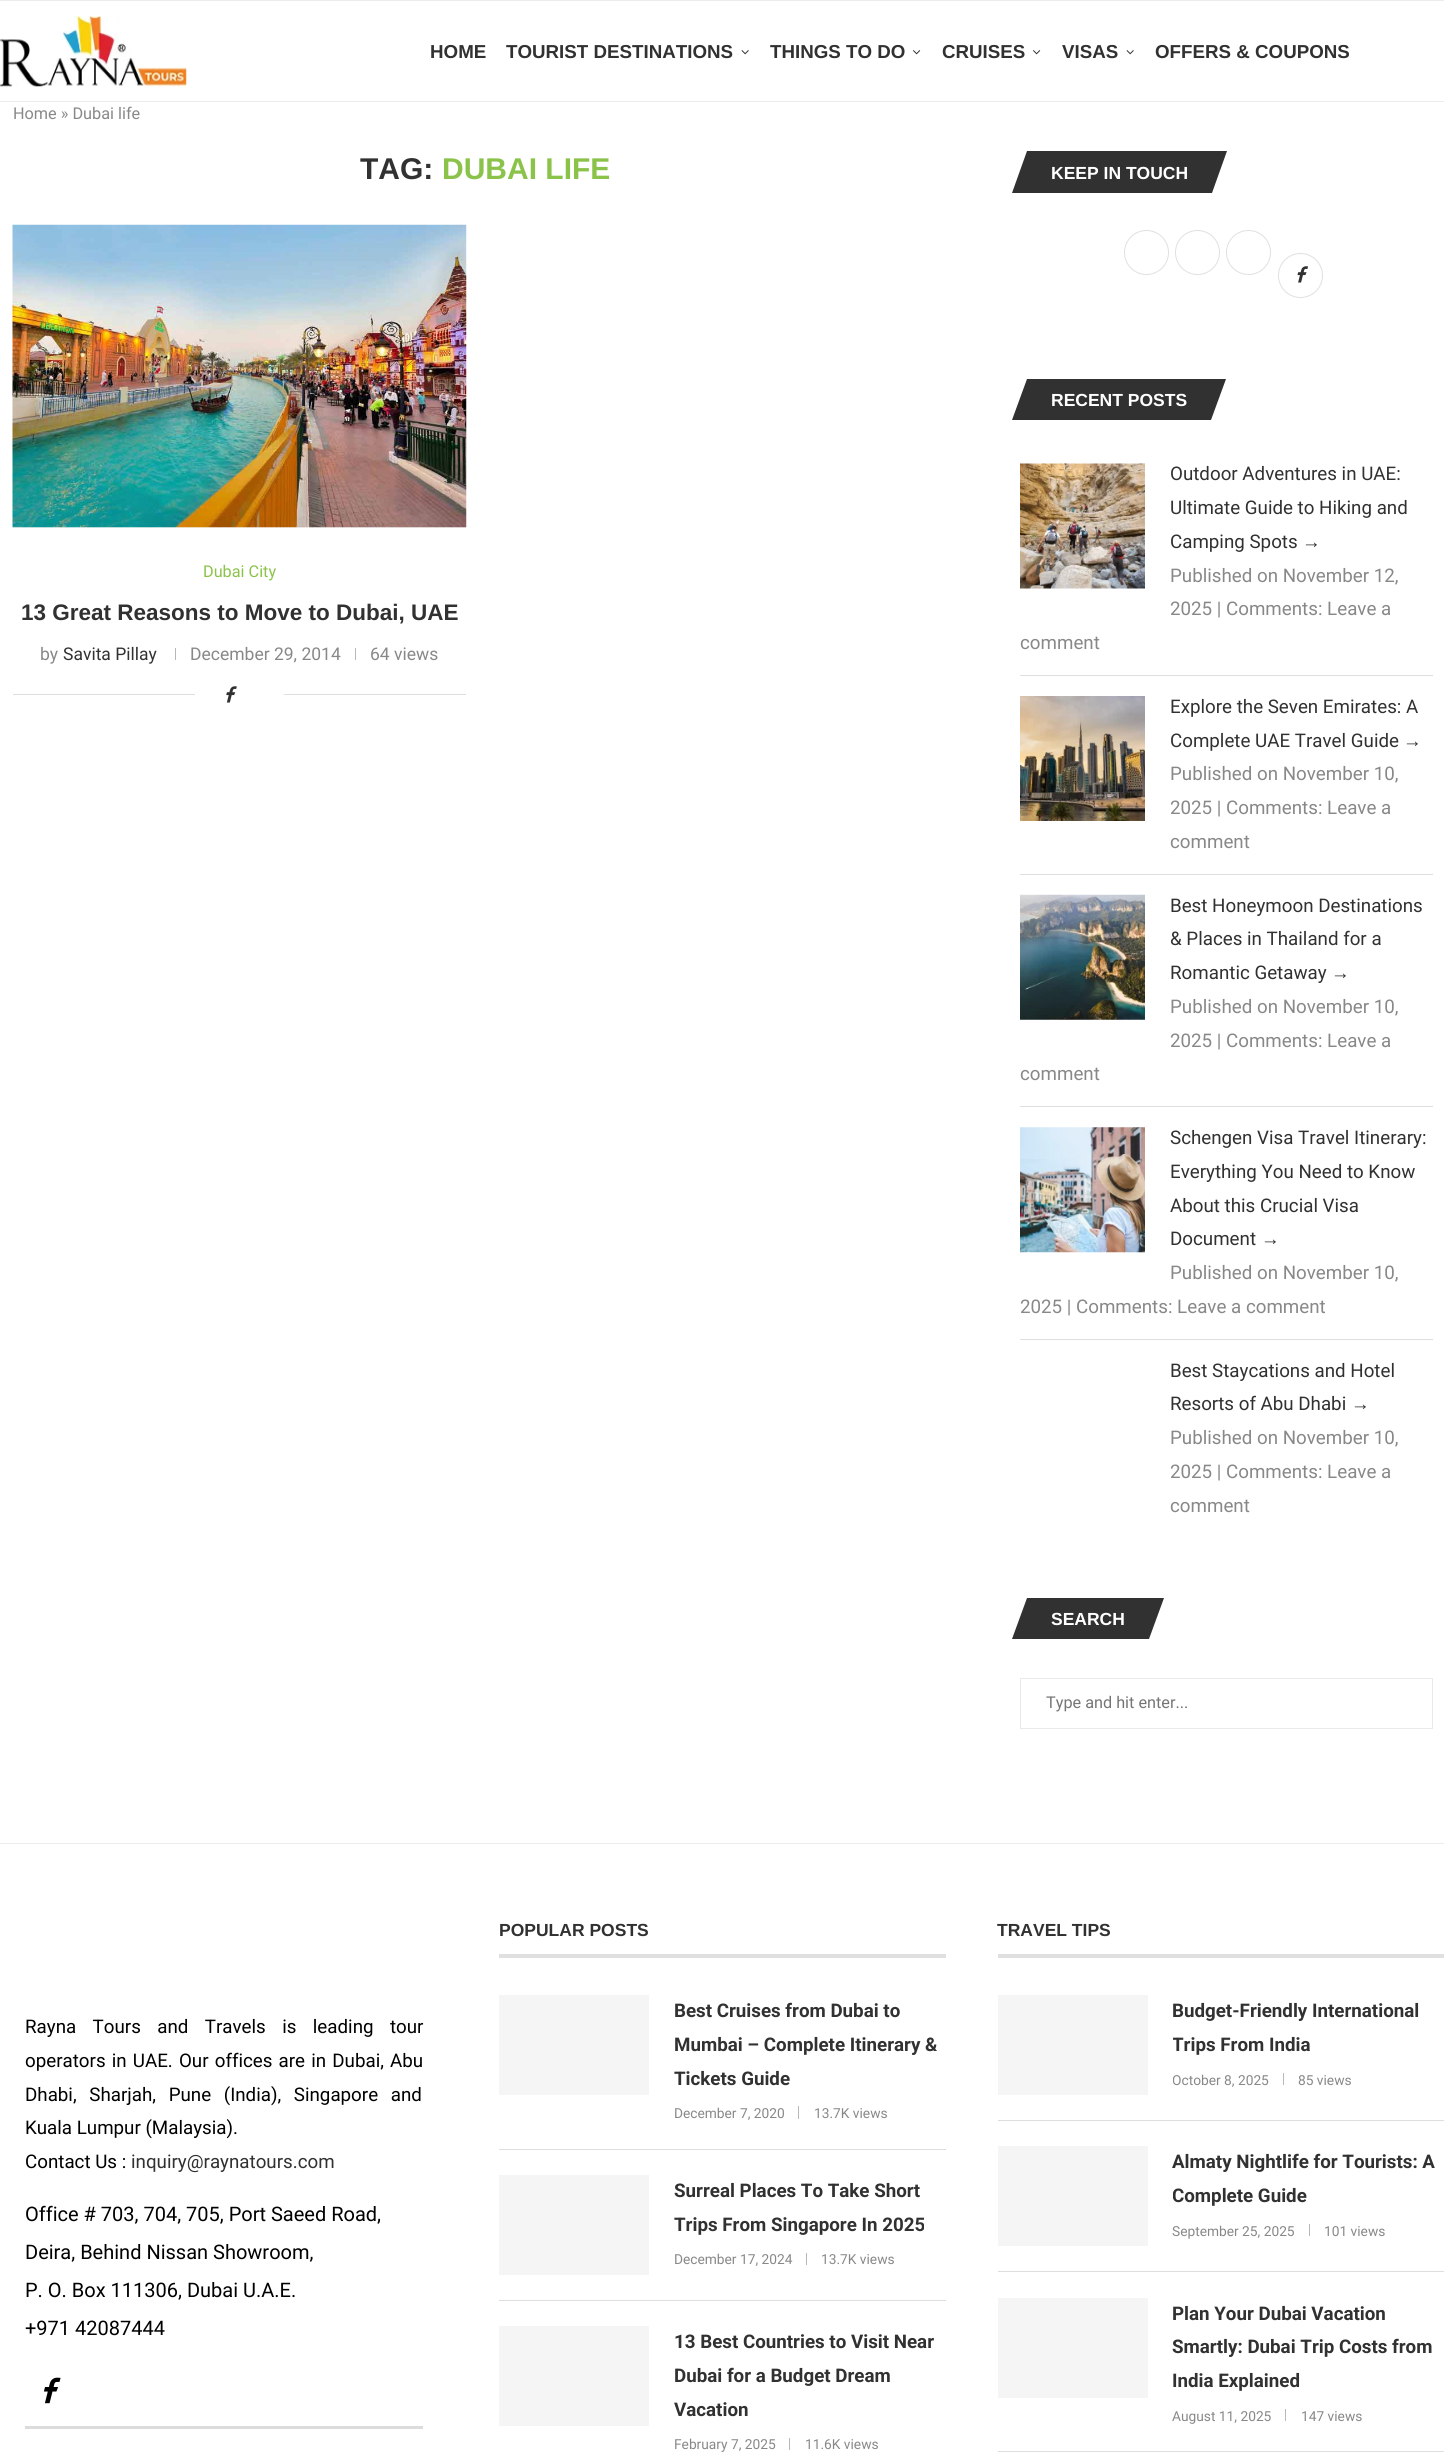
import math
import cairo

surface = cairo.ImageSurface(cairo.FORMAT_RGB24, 1444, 2452)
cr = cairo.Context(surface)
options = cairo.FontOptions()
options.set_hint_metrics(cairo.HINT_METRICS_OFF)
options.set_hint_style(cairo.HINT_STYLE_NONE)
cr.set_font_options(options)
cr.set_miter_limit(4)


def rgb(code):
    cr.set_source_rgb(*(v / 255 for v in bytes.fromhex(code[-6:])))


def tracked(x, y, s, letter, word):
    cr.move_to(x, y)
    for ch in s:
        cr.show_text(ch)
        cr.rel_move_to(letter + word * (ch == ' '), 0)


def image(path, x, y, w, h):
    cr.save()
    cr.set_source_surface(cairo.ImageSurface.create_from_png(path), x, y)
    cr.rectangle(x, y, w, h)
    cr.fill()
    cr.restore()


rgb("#ffffff")
cr.paint()
rgb("#ececec")
cr.rectangle(0, 0, 1444, 1)
cr.fill()
cr.rectangle(0, 101, 1444, 1)
cr.fill()
image("img/1.png", 0, 16, 187, 71)
image("img/2.png", 741, 50, 8, 5)
image("img/3.png", 913, 50, 8, 5)
image("img/4.png", 1033, 50, 8, 5)
image("img/5.png", 1126, 50, 8, 5)
rgb("#f5f5f5")
cr.rectangle(13, 527, 453, 1)
cr.fill()
image("img/6.png", 12, 224, 455, 304)
for x, y, w, h, color in [
    (175, 648, 1, 12, "#b8b8b8"),
    (355, 648, 1, 12, "#b8b8b8"),
    (13, 694, 453, 1, "#dedede"),
    (195, 694, 89, 1, "#ffffff"),
]:
    rgb(color)
    cr.rectangle(x, y, w, h)
    cr.fill()
image("img/7.png", 226, 686, 11, 17)
rgb("#313131")
cr.new_path()
cr.move_to(1027, 151)
cr.line_to(1227, 151)
cr.line_to(1212, 193)
cr.line_to(1012, 193)
cr.close_path()
cr.fill()
cr.arc(1146.5, 252.5, 22, 0, 2 * math.pi)
rgb("#e0e0e0")
cr.set_line_width(1)
cr.stroke()
cr.arc(1197.5, 252.5, 22, 0, 2 * math.pi)
cr.stroke()
cr.arc(1248.5, 252.5, 22, 0, 2 * math.pi)
cr.stroke()
cr.arc(1300.5, 275.5, 22, 0, 2 * math.pi)
cr.stroke()
image("img/8.png", 1297, 266, 11, 17)
rgb("#313131")
cr.new_path()
cr.move_to(1027, 379)
cr.line_to(1226, 379)
cr.line_to(1211, 420)
cr.line_to(1012, 420)
cr.close_path()
cr.fill()
rgb("#dedede")
cr.rectangle(1020, 675, 413, 1)
cr.fill()
image("img/9.png", 1020, 463, 125, 126)
cr.rectangle(1020, 874, 413, 1)
cr.fill()
image("img/10.png", 1020, 696, 125, 125)
cr.rectangle(1020, 1106, 413, 1)
cr.fill()
image("img/11.png", 1020, 894, 125, 126)
cr.rectangle(1020, 1339, 413, 1)
cr.fill()
image("img/12.png", 1020, 1127, 125, 126)
rgb("#313131")
cr.new_path()
cr.move_to(1027, 1598)
cr.line_to(1164, 1598)
cr.line_to(1149, 1639)
cr.line_to(1012, 1639)
cr.close_path()
cr.fill()
cr.rectangle(1020.5, 1678.5, 412, 50)
rgb("#e9e9e9")
cr.stroke()
rgb("#ececec")
cr.rectangle(0, 1843, 1444, 1)
cr.fill()
image("img/13.png", 43, 2377, 18, 27)
for x, y, w, h, color in [
    (25, 2426, 398, 3, "#dcdcdc"),
    (499, 1954, 447, 4, "#e0e0e0"),
    (499, 2149, 447, 1, "#dedede"),
    (499, 1995, 150, 100, "#f5f5f5"),
    (798, 2106, 1, 13, "#b8b8b8"),
    (499, 2300, 447, 1, "#dedede"),
    (499, 2175, 150, 100, "#f5f5f5"),
    (806, 2253, 1, 12, "#b8b8b8"),
    (499, 2326, 150, 100, "#f5f5f5"),
    (789, 2438, 1, 12, "#b8b8b8"),
    (998, 1954, 446, 4, "#e0e0e0"),
    (998, 2120, 446, 1, "#dedede"),
    (998, 1995, 150, 100, "#f5f5f5"),
    (1283, 2073, 1, 12, "#b8b8b8"),
    (998, 2271, 446, 1, "#dedede"),
    (998, 2146, 150, 100, "#f5f5f5"),
    (1309, 2224, 1, 12, "#b8b8b8"),
    (998, 2451, 446, 1, "#dedede"),
    (998, 2298, 150, 100, "#f5f5f5"),
    (1285, 2409, 1, 12, "#b8b8b8"),
]:
    rgb(color)
    cr.rectangle(x, y, w, h)
    cr.fill()
cr.select_font_face("Liberation Sans", cairo.FONT_SLANT_NORMAL, cairo.FONT_WEIGHT_BOLD)
cr.set_font_size(18.75)
rgb("#313131")
for x, y, s in [
    (430, 58, "HOME"),
    (506, 58, "TOURIST DESTINATIONS"),
    (770, 58, "THINGS TO DO"),
    (942, 58, "CRUISES"),
    (1062, 58, "VISAS"),
    (1155, 58, "OFFERS & COUPONS"),
]:
    cr.move_to(x, y)
    cr.show_text(s)
cr.select_font_face("Roboto")
cr.set_font_size(16.25)
rgb("#888888")
cr.move_to(13, 119)
cr.show_text("Home » Dubai life")
cr.select_font_face("Liberation Sans", cairo.FONT_SLANT_NORMAL, cairo.FONT_WEIGHT_BOLD)
cr.set_font_size(30)
rgb("#313131")
cr.move_to(360, 179)
cr.show_text("TAG:")
rgb("#8bc34a")
cr.move_to(442, 179)
cr.show_text("DUBAI LIFE")
cr.select_font_face("Roboto")
cr.set_font_size(16.25)
cr.move_to(203, 577)
cr.show_text("Dubai City")
cr.select_font_face("Liberation Sans", cairo.FONT_SLANT_NORMAL, cairo.FONT_WEIGHT_BOLD)
cr.set_font_size(22.5)
rgb("#313131")
cr.move_to(21, 620)
cr.show_text("13 Great Reasons to Move to Dubai, UAE")
cr.select_font_face("Roboto")
cr.set_font_size(17.5)
rgb("#888888")
cr.move_to(40, 660)
cr.show_text("by")
rgb("#313131")
cr.move_to(63, 660)
cr.show_text("Savita Pillay")
rgb("#888888")
cr.move_to(190, 660)
cr.show_text("December 29, 2014")
cr.move_to(370, 660)
cr.show_text("64 views")
cr.select_font_face("Liberation Sans", cairo.FONT_SLANT_NORMAL, cairo.FONT_WEIGHT_BOLD)
rgb("#ffffff")
cr.move_to(1051, 179)
cr.show_text("KEEP IN TOUCH")
cr.move_to(1051, 406)
cr.show_text("RECENT POSTS")
cr.select_font_face("Roboto")
cr.set_font_size(18.75)
rgb("#313131")
for x, y, s in [
    (1170, 480, "Outdoor Adventures in UAE:"),
    (1170, 514, "Ultimate Guide to Hiking and"),
    (1170, 548, "Camping Spots"),
]:
    cr.move_to(x, y)
    cr.show_text(s)
cr.select_font_face("Liberation Sans")
cr.move_to(1302, 548)
cr.show_text("→")
cr.select_font_face("Roboto")
rgb("#888888")
for x, y, s in [
    (1170, 582, "Published on November 12,"),
    (1170, 615, "2025 | Comments: Leave a"),
    (1020, 649, "comment"),
]:
    cr.move_to(x, y)
    cr.show_text(s)
rgb("#313131")
cr.move_to(1170, 713)
cr.show_text("Explore the Seven Emirates: A")
cr.move_to(1170, 747)
cr.show_text("Complete UAE Travel Guide")
cr.select_font_face("Liberation Sans")
cr.move_to(1403, 747)
cr.show_text("→")
cr.select_font_face("Roboto")
rgb("#888888")
for x, y, s in [
    (1170, 780, "Published on November 10,"),
    (1170, 814, "2025 | Comments: Leave a"),
    (1170, 848, "comment"),
]:
    cr.move_to(x, y)
    cr.show_text(s)
rgb("#313131")
for x, y, s in [
    (1170, 912, "Best Honeymoon Destinations"),
    (1170, 945, "& Places in Thailand for a"),
    (1170, 979, "Romantic Getaway"),
]:
    cr.move_to(x, y)
    cr.show_text(s)
cr.select_font_face("Liberation Sans")
cr.move_to(1331, 979)
cr.show_text("→")
cr.select_font_face("Roboto")
rgb("#888888")
for x, y, s in [
    (1170, 1013, "Published on November 10,"),
    (1170, 1047, "2025 | Comments: Leave a"),
    (1020, 1080, "comment"),
]:
    cr.move_to(x, y)
    cr.show_text(s)
rgb("#313131")
for x, y, s in [
    (1170, 1144, "Schengen Visa Travel Itinerary:"),
    (1170, 1178, "Everything You Need to Know"),
    (1170, 1212, "About this Crucial Visa"),
    (1170, 1245, "Document"),
]:
    cr.move_to(x, y)
    cr.show_text(s)
cr.select_font_face("Liberation Sans")
cr.move_to(1261, 1245)
cr.show_text("→")
cr.select_font_face("Roboto")
rgb("#888888")
cr.move_to(1170, 1279)
cr.show_text("Published on November 10,")
cr.move_to(1020, 1313)
cr.show_text("2025 | Comments: Leave a comment")
rgb("#313131")
cr.move_to(1170, 1377)
cr.show_text("Best Staycations and Hotel")
cr.move_to(1170, 1410)
cr.show_text("Resorts of Abu Dhabi")
cr.select_font_face("Liberation Sans")
cr.move_to(1351, 1410)
cr.show_text("→")
cr.select_font_face("Roboto")
rgb("#888888")
for x, y, s in [
    (1170, 1444, "Published on November 10,"),
    (1170, 1478, "2025 | Comments: Leave a"),
    (1170, 1512, "comment"),
]:
    cr.move_to(x, y)
    cr.show_text(s)
cr.select_font_face("Liberation Sans", cairo.FONT_SLANT_NORMAL, cairo.FONT_WEIGHT_BOLD)
cr.set_font_size(17.5)
rgb("#ffffff")
cr.move_to(1051, 1625)
cr.show_text("SEARCH")
cr.select_font_face("Roboto")
cr.set_font_size(16.25)
rgb("#757575")
cr.move_to(1046, 1708)
cr.show_text("Type and hit enter...")
cr.set_font_size(18.75)
rgb("#000000")
tracked(25, 2033, "Rayna Tours and Travels is leading tour", 0, 11.75)
tracked(25, 2067, "operators in UAE. Our offices are in Dubai, Abu", 0, 1.5)
tracked(25, 2101, "Dhabi, Sharjah, Pune (India), Singapore and", 0, 8)
cr.move_to(25, 2134)
cr.show_text("Kuala Lumpur (Malaysia).")
cr.move_to(25, 2168)
cr.show_text("Contact Us :")
rgb("#313131")
cr.move_to(131, 2168)
cr.show_text("inquiry@raynatours.com")
cr.set_font_size(20)
rgb("#000000")
for x, y, s in [
    (25, 2221, "Office # 703, 704, 705, Port Saeed Road,"),
    (25, 2259, "Deira, Behind Nissan Showroom,"),
    (25, 2297, "P. O. Box 111306, Dubai U.A.E."),
    (25, 2335, "+971 42087444"),
]:
    cr.move_to(x, y)
    cr.show_text(s)
cr.select_font_face("Liberation Sans", cairo.FONT_SLANT_NORMAL, cairo.FONT_WEIGHT_BOLD)
cr.set_font_size(17.5)
rgb("#313131")
cr.move_to(499, 1936)
cr.show_text("POPULAR POSTS")
cr.select_font_face("Roboto", cairo.FONT_SLANT_NORMAL, cairo.FONT_WEIGHT_BOLD)
cr.set_font_size(18.75)
for x, y, s in [
    (674, 2017, "Best Cruises from Dubai to"),
    (674, 2051, "Mumbai – Complete Itinerary &"),
    (674, 2085, "Tickets Guide"),
]:
    cr.move_to(x, y)
    cr.show_text(s)
cr.select_font_face("Roboto")
cr.set_font_size(13.75)
rgb("#888888")
cr.move_to(674, 2118)
cr.show_text("December 7, 2020")
cr.move_to(814, 2118)
cr.show_text("13.7K views")
cr.select_font_face("Roboto", cairo.FONT_SLANT_NORMAL, cairo.FONT_WEIGHT_BOLD)
cr.set_font_size(18.75)
rgb("#313131")
cr.move_to(674, 2197)
cr.show_text("Surreal Places To Take Short")
cr.move_to(674, 2231)
cr.show_text("Trips From Singapore In 2025")
cr.select_font_face("Roboto")
cr.set_font_size(13.75)
rgb("#888888")
cr.move_to(674, 2264)
cr.show_text("December 17, 2024")
cr.move_to(821, 2264)
cr.show_text("13.7K views")
cr.select_font_face("Roboto", cairo.FONT_SLANT_NORMAL, cairo.FONT_WEIGHT_BOLD)
cr.set_font_size(18.75)
rgb("#313131")
for x, y, s in [
    (674, 2348, "13 Best Countries to Visit Near"),
    (674, 2382, "Dubai for a Budget Dream"),
    (674, 2416, "Vacation"),
]:
    cr.move_to(x, y)
    cr.show_text(s)
cr.select_font_face("Roboto")
cr.set_font_size(13.75)
rgb("#888888")
cr.move_to(674, 2449)
cr.show_text("February 7, 2025")
cr.move_to(805, 2449)
cr.show_text("11.6K views")
cr.select_font_face("Liberation Sans", cairo.FONT_SLANT_NORMAL, cairo.FONT_WEIGHT_BOLD)
cr.set_font_size(17.5)
rgb("#313131")
cr.move_to(997, 1936)
cr.show_text("TRAVEL TIPS")
cr.select_font_face("Roboto", cairo.FONT_SLANT_NORMAL, cairo.FONT_WEIGHT_BOLD)
cr.set_font_size(18.75)
cr.move_to(1172, 2017)
cr.show_text("Budget-Friendly International")
cr.save()
cr.rectangle(1173, 1995, 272, 95)
cr.clip()
cr.move_to(1172, 2051)
cr.show_text("Trips From India")
cr.select_font_face("Roboto")
cr.set_font_size(13.75)
rgb("#888888")
cr.move_to(1172, 2085)
cr.show_text("October 8, 2025")
cr.restore()
cr.select_font_face("Roboto")
cr.set_font_size(13.75)
rgb("#888888")
cr.move_to(1298, 2085)
cr.show_text("85 views")
cr.select_font_face("Roboto", cairo.FONT_SLANT_NORMAL, cairo.FONT_WEIGHT_BOLD)
cr.set_font_size(18.75)
rgb("#313131")
cr.move_to(1172, 2168)
cr.show_text("Almaty Nightlife for Tourists: A")
cr.save()
cr.rectangle(1173, 2146, 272, 95)
cr.clip()
cr.move_to(1172, 2202)
cr.show_text("Complete Guide")
cr.restore()
cr.select_font_face("Roboto")
cr.set_font_size(13.75)
rgb("#888888")
cr.move_to(1172, 2236)
cr.show_text("September 25, 2025")
cr.move_to(1324, 2236)
cr.show_text("101 views")
cr.select_font_face("Roboto", cairo.FONT_SLANT_NORMAL, cairo.FONT_WEIGHT_BOLD)
cr.set_font_size(18.75)
rgb("#313131")
for x, y, s in [
    (1172, 2320, "Plan Your Dubai Vacation"),
    (1172, 2353, "Smartly: Dubai Trip Costs from"),
    (1172, 2387, "India Explained"),
]:
    cr.move_to(x, y)
    cr.show_text(s)
cr.select_font_face("Roboto")
cr.set_font_size(13.75)
rgb("#888888")
cr.move_to(1172, 2421)
cr.show_text("August 11, 2025")
cr.move_to(1301, 2421)
cr.show_text("147 views")
surface.write_to_png("page.png")
